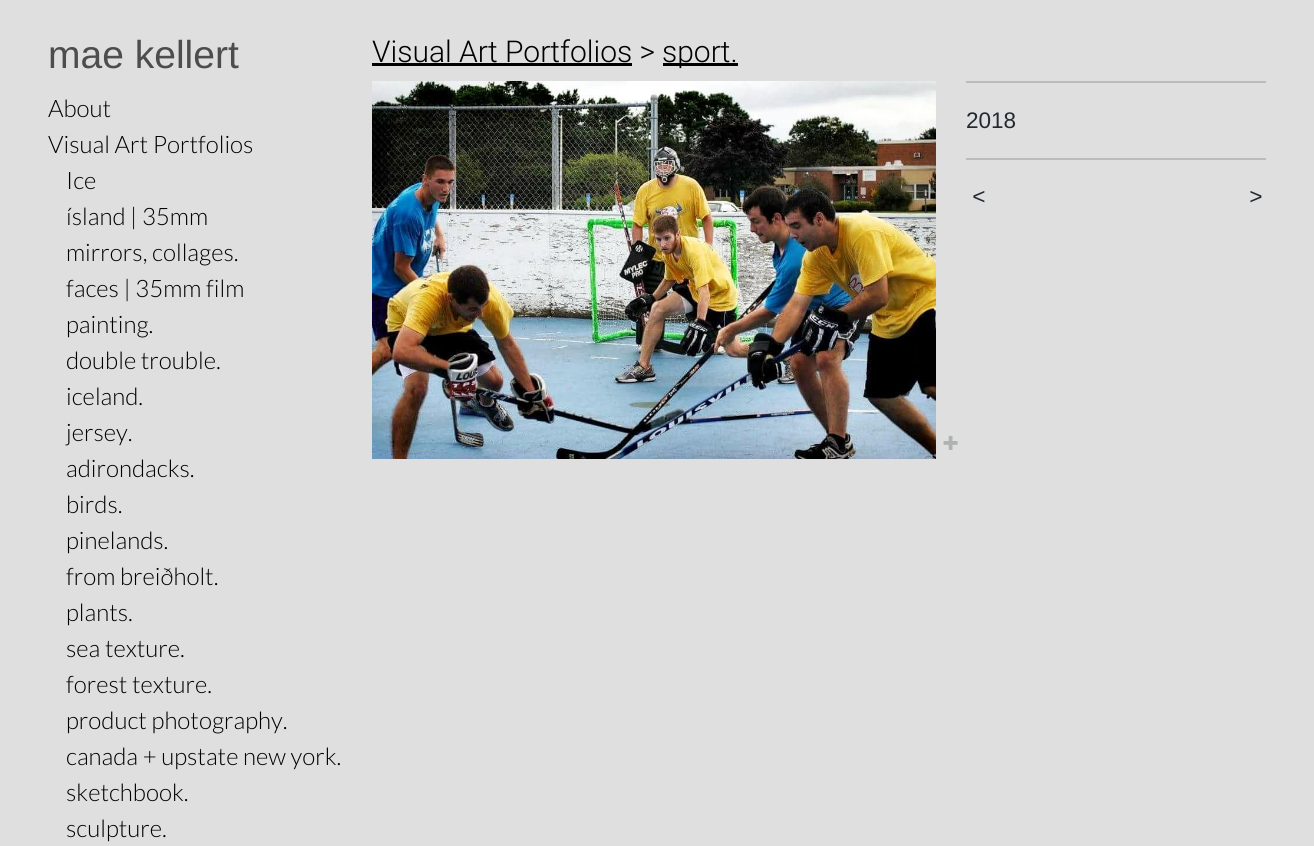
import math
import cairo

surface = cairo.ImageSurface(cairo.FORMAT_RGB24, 1314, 846)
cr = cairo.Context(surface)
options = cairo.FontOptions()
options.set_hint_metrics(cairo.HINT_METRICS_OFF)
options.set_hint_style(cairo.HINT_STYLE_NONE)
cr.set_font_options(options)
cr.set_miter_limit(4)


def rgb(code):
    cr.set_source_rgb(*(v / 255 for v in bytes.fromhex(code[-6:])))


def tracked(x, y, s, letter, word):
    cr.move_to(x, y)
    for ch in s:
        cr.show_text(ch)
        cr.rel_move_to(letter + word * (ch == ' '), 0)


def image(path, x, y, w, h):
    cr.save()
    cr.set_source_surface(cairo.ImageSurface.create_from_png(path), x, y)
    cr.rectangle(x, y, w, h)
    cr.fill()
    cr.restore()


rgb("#dfdfdf")
cr.paint()
rgb("#000000")
cr.rectangle(372, 63, 260, 3)
cr.fill()
cr.rectangle(663, 63, 75, 3)
cr.fill()
image("img/1.png", 372, 81, 564, 378)
image("img/2.png", 943, 435, 15, 15)
rgb("#b9bbbc")
cr.rectangle(966, 81, 300, 2)
cr.fill()
cr.rectangle(966, 158, 300, 2)
cr.fill()
cr.select_font_face("Arimo")
cr.set_font_size(39)
rgb("#4d4d4d")
cr.move_to(48, 68)
cr.show_text("mae kellert")
cr.select_font_face("Lato Light")
cr.set_font_size(24)
rgb("#000000")
for x, y, s in [
    (48, 117, "About"),
    (48, 153, "Visual Art Portfolios"),
    (66, 189, "Ice"),
    (66, 225, "ísland | 35mm"),
    (66, 261, "mirrors, collages."),
    (66, 297, "faces | 35mm film"),
    (66, 333, "painting."),
    (66, 369, "double trouble."),
    (66, 405, "iceland."),
    (66, 441, "jersey."),
    (66, 477, "adirondacks."),
    (66, 513, "birds."),
    (66, 549, "pinelands."),
    (66, 585, "from breiðholt."),
    (66, 621, "plants."),
    (66, 657, "sea texture."),
    (66, 693, "forest texture."),
    (66, 729, "product photography."),
    (66, 765, "canada + upstate new york."),
    (66, 801, "sketchbook."),
    (66, 837, "sculpture."),
]:
    cr.move_to(x, y)
    cr.show_text(s)
cr.select_font_face("Roboto Light")
cr.set_font_size(30)
cr.move_to(372, 62)
cr.show_text("Visual Art Portfolios >")
cr.move_to(662, 62)
cr.show_text("sport.")
cr.select_font_face("Liberation Sans")
cr.set_font_size(22.5)
rgb("#23292f")
cr.move_to(966, 128)
cr.show_text("2018")
cr.select_font_face("Liberation Sans", cairo.FONT_SLANT_ITALIC)
tracked(972, 204, "<", 2, 0)
tracked(1249, 204, ">", 2, 0)
surface.write_to_png("page.png")
